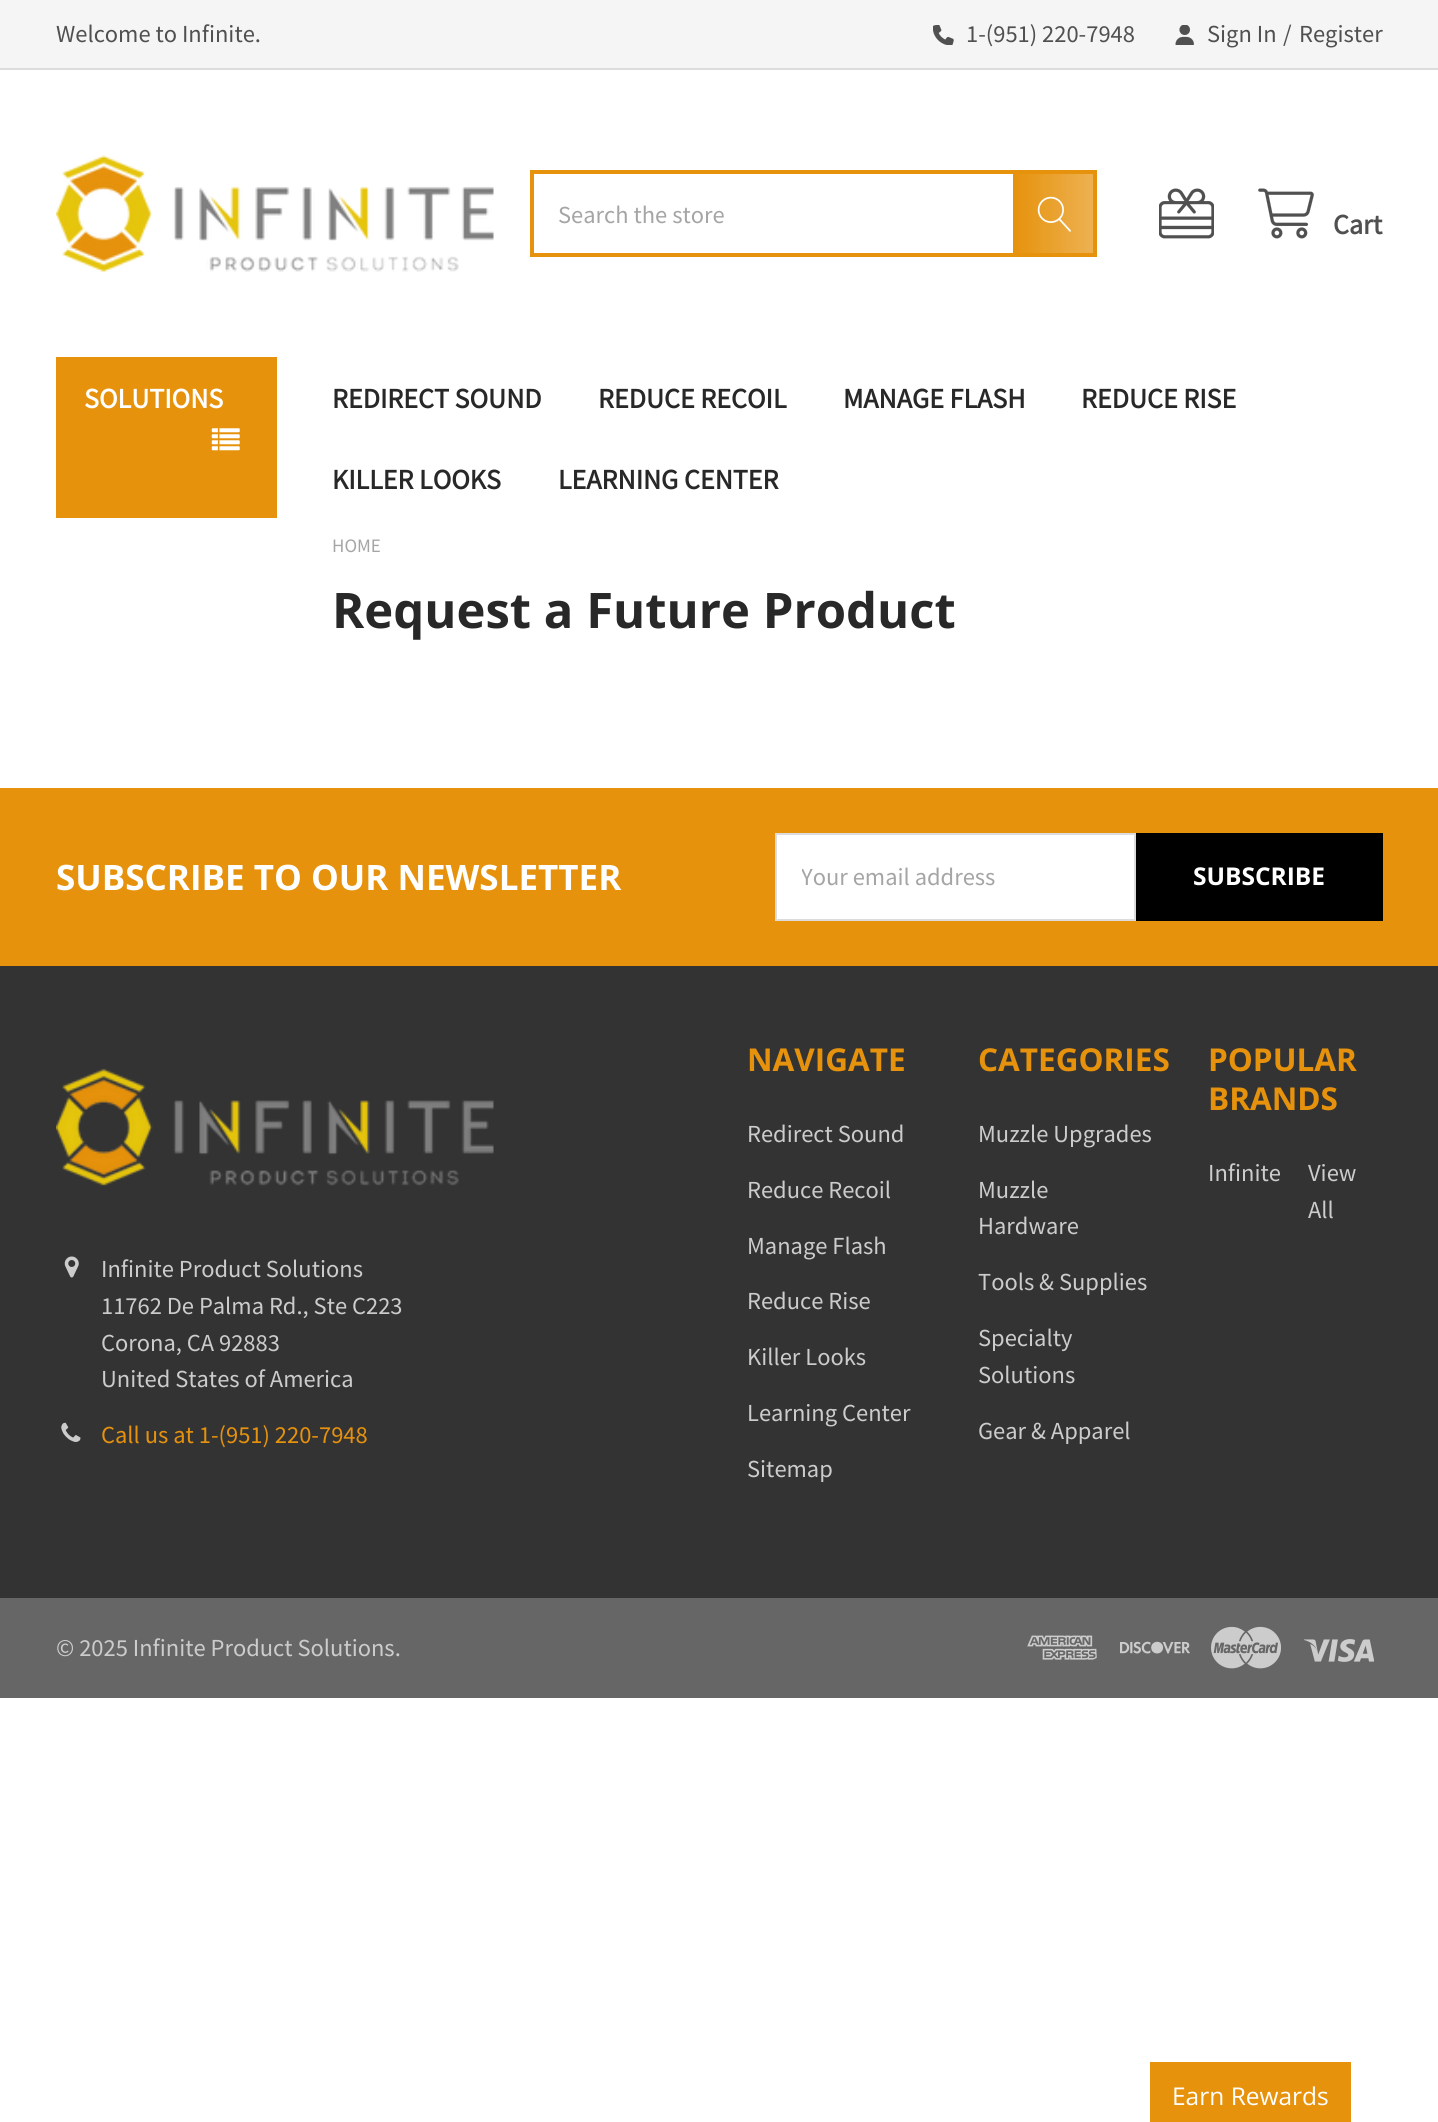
import math
import cairo

surface = cairo.ImageSurface(cairo.FORMAT_RGB24, 1438, 2122)
cr = cairo.Context(surface)
options = cairo.FontOptions()
options.set_hint_metrics(cairo.HINT_METRICS_OFF)
options.set_hint_style(cairo.HINT_STYLE_NONE)
cr.set_font_options(options)
cr.set_miter_limit(4)


def rgb(code):
    cr.set_source_rgb(*(v / 255 for v in bytes.fromhex(code[-6:])))


def image(path, x, y, w, h):
    cr.save()
    cr.set_source_surface(cairo.ImageSurface.create_from_png(path), x, y)
    cr.rectangle(x, y, w, h)
    cr.fill()
    cr.restore()


rgb("#ffffff")
cr.paint()
rgb("#f5f5f5")
cr.rectangle(0, 0, 1438, 68)
cr.fill()
rgb("#dcdcdc")
cr.rectangle(0, 68, 1438, 2)
cr.fill()
image("img/1.png", 933, 25, 21, 20)
image("img/2.png", 1175, 25, 19, 20)
image("img/3.png", 56, 155, 438, 117)
cr.rectangle(532, 172, 563, 83)
rgb("#e6920c")
cr.set_line_width(4)
cr.stroke()
gradient = cairo.LinearGradient(1013, 214, 1097, 214)
gradient.add_color_stop_rgba(0, 0.902, 0.573, 0.047, 1)
gradient.add_color_stop_rgba(1, 0.902, 0.573, 0.047, 0.7)
cr.set_source(gradient)
cr.rectangle(1013, 174, 80, 79)
cr.fill()
image("img/4.png", 1037, 196, 34, 36)
image("img/5.png", 1159, 188, 55, 51)
image("img/6.png", 1258, 188, 56, 51)
rgb("#e6920c")
cr.rectangle(56, 357, 221, 161)
cr.fill()
image("img/7.png", 211, 428, 29, 23)
rgb("#333333")
cr.rectangle(0, 966, 1438, 632)
cr.fill()
rgb("#e6920c")
cr.rectangle(0, 788, 1438, 178)
cr.fill()
rgb("#ffffff")
cr.rectangle(776, 834, 359, 86)
cr.fill_preserve()
rgb("#dcdcdc")
cr.set_line_width(2)
cr.stroke()
rgb("#000000")
cr.rectangle(1136, 833, 247, 88)
cr.fill()
image("img/8.png", 56, 1068, 438, 118)
image("img/9.png", 64, 1256, 15, 22)
image("img/10.png", 61, 1422, 20, 20)
rgb("#666666")
cr.rectangle(0, 1598, 1438, 100)
cr.fill()
image("img/11.png", 1027, 1635, 70, 25)
image("img/12.png", 1120, 1641, 70, 13)
image("img/13.png", 1211, 1626, 70, 43)
image("img/14.png", 1304, 1639, 70, 23)
rgb("#e6920c")
cr.rectangle(1150, 2062, 201, 60)
cr.fill()
cr.select_font_face("Source Sans Pro")
cr.set_font_size(24.5)
rgb("#505050")
for x, y, s in [
    (56, 42, "Welcome to Infinite."),
    (966, 42, "1-(951) 220-7948"),
    (1207, 42, "Sign In"),
    (1283, 42, "/"),
    (1299, 42, "Register"),
]:
    cr.move_to(x, y)
    cr.show_text(s)
rgb("#a5a5a5")
cr.move_to(558, 223)
cr.show_text("Search the store")
cr.select_font_face("Source Sans Pro", cairo.FONT_SLANT_NORMAL, cairo.FONT_WEIGHT_BOLD)
cr.set_font_size(28)
rgb("#505050")
cr.move_to(1333, 234)
cr.show_text("Cart")
rgb("#ffffff")
cr.move_to(84, 408)
cr.show_text("SOLUTIONS")
rgb("#282828")
for x, y, s in [
    (332, 408, "REDIRECT SOUND"),
    (598, 408, "REDUCE RECOIL"),
    (843, 408, "MANAGE FLASH"),
    (1081, 408, "REDUCE RISE"),
    (332, 489, "KILLER LOOKS"),
    (558, 489, "LEARNING CENTER"),
]:
    cr.move_to(x, y)
    cr.show_text(s)
cr.select_font_face("Source Sans Pro")
cr.set_font_size(19)
rgb("#a5a5a5")
cr.move_to(332, 552)
cr.show_text("HOME")
cr.select_font_face("Open Sans", cairo.FONT_SLANT_NORMAL, cairo.FONT_WEIGHT_BOLD)
cr.set_font_size(49)
rgb("#282828")
cr.move_to(332, 628)
cr.show_text("Request a Future Product")
cr.set_font_size(35)
rgb("#ffffff")
cr.move_to(56, 890)
cr.show_text("SUBSCRIBE TO OUR NEWSLETTER")
cr.save()
cr.rectangle(802, 861, 308, 32)
cr.clip()
cr.select_font_face("Source Sans Pro")
cr.set_font_size(24.5)
rgb("#a5a5a5")
cr.move_to(801, 885)
cr.show_text("Your email address")
cr.restore()
cr.set_font_size(24.5)
cr.move_to(1193, 885)
cr.show_text("SUBSCRIBE")
cr.set_font_size(31.5)
rgb("#e6920c")
cr.move_to(747, 1071)
cr.show_text("NAVIGATE")
cr.select_font_face("Source Sans Pro")
cr.set_font_size(24.5)
rgb("#cccccc")
for x, y, s in [
    (747, 1142, "Redirect Sound"),
    (747, 1198, "Reduce Recoil"),
    (747, 1254, "Manage Flash"),
    (747, 1309, "Reduce Rise"),
    (747, 1365, "Killer Looks"),
    (747, 1421, "Learning Center"),
    (747, 1477, "Sitemap"),
]:
    cr.move_to(x, y)
    cr.show_text(s)
cr.select_font_face("Open Sans", cairo.FONT_SLANT_NORMAL, cairo.FONT_WEIGHT_BOLD)
cr.set_font_size(31.5)
rgb("#e6920c")
cr.move_to(978, 1071)
cr.show_text("CATEGORIES")
cr.select_font_face("Source Sans Pro")
cr.set_font_size(24.5)
rgb("#cccccc")
for x, y, s in [
    (978, 1142, "Muzzle Upgrades"),
    (978, 1198, "Muzzle"),
    (978, 1234, "Hardware"),
    (978, 1290, "Tools & Supplies"),
    (978, 1346, "Specialty"),
    (978, 1383, "Solutions"),
    (978, 1439, "Gear & Apparel"),
]:
    cr.move_to(x, y)
    cr.show_text(s)
cr.select_font_face("Open Sans", cairo.FONT_SLANT_NORMAL, cairo.FONT_WEIGHT_BOLD)
cr.set_font_size(31.5)
rgb("#e6920c")
cr.move_to(1208, 1071)
cr.show_text("POPULAR")
cr.move_to(1208, 1110)
cr.show_text("BRANDS")
cr.select_font_face("Source Sans Pro")
cr.set_font_size(24.5)
rgb("#cccccc")
for x, y, s in [
    (1208, 1181, "Infinite"),
    (1308, 1181, "View"),
    (1308, 1218, "All"),
    (101, 1277, "Infinite Product Solutions"),
    (101, 1314, "11762 De Palma Rd., Ste C223"),
    (101, 1351, "Corona, CA 92883"),
    (101, 1387, "United States of America"),
]:
    cr.move_to(x, y)
    cr.show_text(s)
rgb("#e6920c")
cr.move_to(101, 1443)
cr.show_text("Call us at 1-(951) 220-7948")
rgb("#cccccc")
cr.move_to(56, 1656)
cr.show_text("© 2025 Infinite Product Solutions.")
cr.select_font_face("Open Sans")
rgb("#ffffff")
cr.move_to(1172, 2105)
cr.show_text("Earn Rewards")
surface.write_to_png("page.png")
